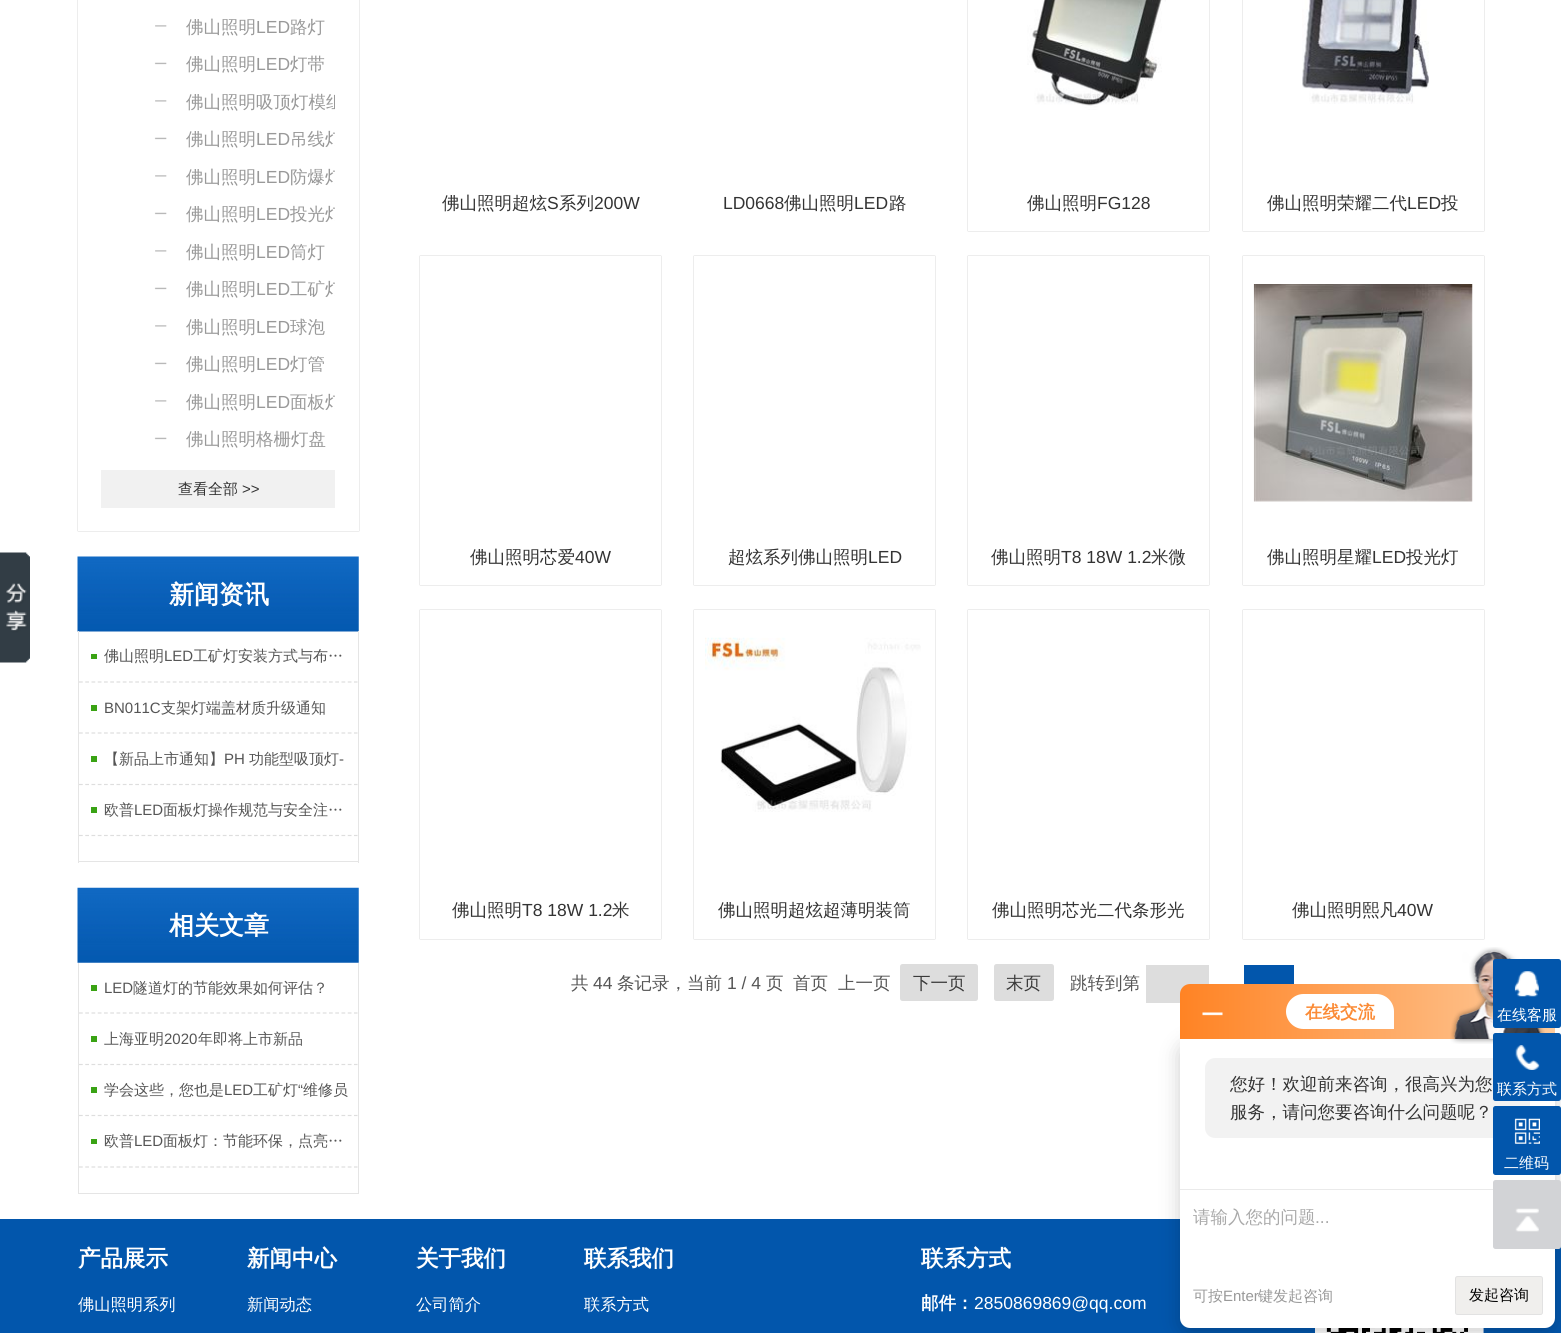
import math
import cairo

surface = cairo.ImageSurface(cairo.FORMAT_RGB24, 1561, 1333)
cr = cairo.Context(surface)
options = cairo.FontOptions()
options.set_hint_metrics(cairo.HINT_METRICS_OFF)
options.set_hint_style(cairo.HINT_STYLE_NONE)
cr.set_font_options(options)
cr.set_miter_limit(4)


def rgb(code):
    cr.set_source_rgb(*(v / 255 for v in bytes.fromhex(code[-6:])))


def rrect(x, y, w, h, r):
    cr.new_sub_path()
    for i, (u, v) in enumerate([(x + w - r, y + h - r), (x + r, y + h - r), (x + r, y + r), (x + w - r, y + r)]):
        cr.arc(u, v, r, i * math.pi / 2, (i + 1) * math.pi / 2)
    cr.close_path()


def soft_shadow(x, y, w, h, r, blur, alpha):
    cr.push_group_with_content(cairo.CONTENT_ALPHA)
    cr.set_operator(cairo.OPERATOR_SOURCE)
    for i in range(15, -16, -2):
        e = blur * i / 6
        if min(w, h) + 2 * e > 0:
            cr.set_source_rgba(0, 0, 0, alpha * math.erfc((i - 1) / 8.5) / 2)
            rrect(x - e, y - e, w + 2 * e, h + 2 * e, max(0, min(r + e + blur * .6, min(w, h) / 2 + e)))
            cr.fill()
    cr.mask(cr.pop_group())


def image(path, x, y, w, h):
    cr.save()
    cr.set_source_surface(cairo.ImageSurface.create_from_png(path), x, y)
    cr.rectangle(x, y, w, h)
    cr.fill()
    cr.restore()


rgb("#ffffff")
cr.paint()
image("img/1.png", 0, 552, 30, 111)
rgb("#b7b7b7")
soft_shadow(78, -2, 281, 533, 0, 0.5, 1)
rgb("#ffffff")
cr.rectangle(78, 0, 281, 531)
cr.fill()
image("img/2.png", 155, 25, 12, 2)
image("img/3.png", 154, 62, 13, 3)
image("img/2.png", 155, 100, 12, 2)
image("img/3.png", 154, 137, 13, 3)
image("img/2.png", 155, 175, 12, 2)
image("img/3.png", 154, 212, 13, 3)
image("img/2.png", 155, 250, 12, 2)
image("img/3.png", 154, 287, 13, 3)
image("img/2.png", 155, 325, 12, 2)
image("img/3.png", 154, 362, 13, 3)
image("img/2.png", 155, 400, 12, 2)
image("img/3.png", 154, 437, 13, 3)
rgb("#f1f1f1")
cr.rectangle(101, 470, 234, 38)
cr.fill()
image("img/4.png", 77, 556, 282, 76)
for x, y, w, h, color in [
    (358, 631, 1, 232, "#e5e5e5"),
    (78, 861, 281, 1, "#e5e5e5"),
    (78, 631, 1, 232, "#e5e5e5"),
    (91, 654, 6, 5, "#3aa314"),
]:
    rgb(color)
    cr.rectangle(x, y, w, h)
    cr.fill()
cr.new_path()
cr.move_to(79, 682)
cr.line_to(357.5, 682)
rgb("#dedede")
cr.set_line_width(1.2)
cr.set_dash([3.75, 2.5])
cr.stroke()
rgb("#3aa314")
cr.rectangle(91, 705, 6, 6)
cr.fill()
cr.new_path()
cr.move_to(79, 733)
cr.line_to(357.5, 733)
rgb("#dedede")
cr.stroke()
rgb("#3aa314")
cr.rectangle(91, 756, 6, 6)
cr.fill()
cr.new_path()
cr.move_to(79, 784.5)
cr.line_to(357.5, 784.5)
rgb("#dedede")
cr.stroke()
rgb("#3aa314")
cr.rectangle(91, 807, 6, 6)
cr.fill()
cr.new_path()
cr.move_to(79, 835.5)
cr.line_to(357.5, 835.5)
rgb("#dedede")
cr.stroke()
image("img/5.png", 77, 887, 282, 76)
for x, y, w, h, color in [
    (358, 963, 1, 231, "#e5e5e5"),
    (78, 1193, 281, 1, "#e5e5e5"),
    (78, 963, 1, 231, "#e5e5e5"),
    (91, 985, 6, 6, "#3aa314"),
]:
    rgb(color)
    cr.rectangle(x, y, w, h)
    cr.fill()
cr.new_path()
cr.move_to(79, 1013)
cr.line_to(357.5, 1013)
rgb("#dedede")
cr.stroke()
rgb("#3aa314")
cr.rectangle(91, 1036, 6, 6)
cr.fill()
cr.new_path()
cr.move_to(79, 1064.5)
cr.line_to(357.5, 1064.5)
rgb("#dedede")
cr.stroke()
rgb("#3aa314")
cr.rectangle(91, 1087, 6, 6)
cr.fill()
cr.new_path()
cr.move_to(79, 1115.5)
cr.line_to(357.5, 1115.5)
rgb("#dedede")
cr.stroke()
rgb("#3aa314")
cr.rectangle(91, 1139, 6, 5)
cr.fill()
cr.new_path()
cr.move_to(79, 1167)
cr.line_to(357.5, 1167)
rgb("#dedede")
cr.stroke()
rgb("#b7b7b7")
soft_shadow(968, -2, 241, 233, 0, 0.5, 1)
rgb("#ffffff")
cr.rectangle(968, 0, 241, 231)
cr.fill()
image("img/6.png", 1027, 0, 139, 110)
rgb("#b7b7b7")
soft_shadow(1243, -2, 241, 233, 0, 0.5, 1)
rgb("#ffffff")
cr.rectangle(1243, 0, 241, 231)
cr.fill()
image("img/7.png", 1302, 0, 127, 104)
cr.save()
cr.set_fill_rule(cairo.FILL_RULE_EVEN_ODD)
cr.new_path()
cr.move_to(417, 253)
cr.line_to(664, 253)
cr.line_to(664, 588)
cr.line_to(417, 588)
cr.close_path()
cr.move_to(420, 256)
cr.line_to(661, 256)
cr.line_to(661, 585)
cr.line_to(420, 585)
cr.close_path()
cr.clip()
rgb("#b7b7b7")
soft_shadow(420, 256, 241, 329, 0, 0.5, 1)
cr.restore()
cr.rectangle(420, 256, 241, 1)
cr.fill()
cr.save()
cr.set_fill_rule(cairo.FILL_RULE_EVEN_ODD)
cr.new_path()
cr.move_to(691, 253)
cr.line_to(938, 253)
cr.line_to(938, 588)
cr.line_to(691, 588)
cr.close_path()
cr.move_to(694, 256)
cr.line_to(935, 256)
cr.line_to(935, 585)
cr.line_to(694, 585)
cr.close_path()
cr.clip()
rgb("#b7b7b7")
soft_shadow(694, 256, 241, 329, 0, 0.5, 1)
cr.restore()
cr.rectangle(694, 256, 241, 1)
cr.fill()
rgb("#b7b7b7")
soft_shadow(968, 256, 241, 329, 0, 0.5, 1)
rgb("#ffffff")
cr.rectangle(968, 256, 241, 329)
cr.fill()
rgb("#b7b7b7")
soft_shadow(1243, 256, 241, 329, 0, 0.5, 1)
rgb("#ffffff")
cr.rectangle(1243, 256, 241, 329)
cr.fill()
image("img/8.png", 1253, 284, 220, 218)
cr.save()
cr.set_fill_rule(cairo.FILL_RULE_EVEN_ODD)
cr.new_path()
cr.move_to(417, 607)
cr.line_to(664, 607)
cr.line_to(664, 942)
cr.line_to(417, 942)
cr.close_path()
cr.move_to(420, 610)
cr.line_to(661, 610)
cr.line_to(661, 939)
cr.line_to(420, 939)
cr.close_path()
cr.clip()
rgb("#b7b7b7")
soft_shadow(420, 610, 241, 329, 0, 0.5, 1)
cr.restore()
cr.rectangle(420, 938, 241, 1)
cr.fill()
cr.save()
cr.set_fill_rule(cairo.FILL_RULE_EVEN_ODD)
cr.new_path()
cr.move_to(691, 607)
cr.line_to(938, 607)
cr.line_to(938, 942)
cr.line_to(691, 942)
cr.close_path()
cr.move_to(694, 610)
cr.line_to(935, 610)
cr.line_to(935, 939)
cr.line_to(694, 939)
cr.close_path()
cr.clip()
rgb("#b7b7b7")
soft_shadow(694, 610, 241, 329, 0, 0.5, 1)
cr.restore()
image("img/9.png", 705, 637, 216, 175)
cr.rectangle(694, 938, 241, 1)
cr.fill()
rgb("#b7b7b7")
soft_shadow(968, 610, 241, 329, 0, 0.5, 1)
rgb("#ffffff")
cr.rectangle(968, 610, 241, 329)
cr.fill()
rgb("#b7b7b7")
soft_shadow(1243, 610, 241, 329, 0, 0.5, 1)
rgb("#ffffff")
cr.rectangle(1243, 610, 241, 329)
cr.fill()
rgb("#dddddd")
rrect(900, 964, 78, 37, 2.5)
cr.fill()
rrect(994, 964, 60, 37, 2.5)
cr.fill()
for x, y, w, h, color in [
    (1146, 965, 63, 38, "#dddddd"),
    (1244, 965, 50, 19, "#0256ac"),
    (0, 1219, 1561, 114, "#0256ac"),
]:
    rgb(color)
    cr.rectangle(x, y, w, h)
    cr.fill()
image("img/16.png", 1315, 1328, 169, 5)
rgb("#000000")
soft_shadow(1180, 1044, 375, 289, 10, 10, 0.2)
gradient = cairo.LinearGradient(1180, 1011, 1555, 1011)
gradient.add_color_stop_rgba(0, 1, 0.514, 0.141, 1)
gradient.add_color_stop_rgba(1, 0.996, 0.796, 0.612, 1)
cr.set_source(gradient)
cr.new_path()
cr.move_to(1190, 984)
cr.line_to(1545, 984)
cr.curve_to(1550.5, 984, 1555, 988.5, 1555, 994)
cr.line_to(1555, 1039)
cr.line_to(1180, 1039)
cr.line_to(1180, 994)
cr.curve_to(1180, 988.5, 1184.5, 984, 1190, 984)
cr.close_path()
cr.fill()
image("img/10.png", 1202, 1012, 21, 4)
rgb("#ffffff")
cr.new_path()
cr.move_to(1303.5, 994)
cr.line_to(1376.5, 994)
cr.curve_to(1386, 994, 1394, 1002, 1394, 1011.5)
cr.line_to(1394, 1029)
cr.line_to(1303.5, 1029)
cr.curve_to(1294, 1029, 1286, 1021, 1286, 1011.5)
cr.curve_to(1286, 1002, 1294, 994, 1303.5, 994)
cr.close_path()
cr.fill()
cr.new_path()
cr.move_to(1180, 1039)
cr.line_to(1555, 1039)
cr.line_to(1555, 1318)
cr.curve_to(1555, 1323.5, 1550.5, 1328, 1545, 1328)
cr.line_to(1190, 1328)
cr.curve_to(1184.5, 1328, 1180, 1323.5, 1180, 1318)
cr.close_path()
cr.fill()
image("img/11.png", 1450, 947, 95, 97)
rgb("#f2f2f2")
rrect(1205, 1058, 325, 80, 10)
cr.fill()
rgb("#eaeaea")
cr.rectangle(1180, 1189, 313, 1)
cr.fill()
rgb("#f0efed")
rrect(1455.5, 1276.5, 87, 38, 2)
cr.fill_preserve()
rgb("#e2e2e2")
cr.set_line_width(1)
cr.set_dash([])
cr.stroke()
rgb("#0256ac")
rrect(1493, 959, 68, 69, 2.5)
cr.fill()
image("img/12.png", 1514, 971, 25, 26)
rrect(1493, 1033, 68, 68, 2.5)
cr.fill()
image("img/13.png", 1515, 1045, 25, 25)
rrect(1493, 1106, 68, 69, 2.5)
cr.fill()
image("img/14.png", 1514, 1118, 26, 26)
rgb("#d2d3d6")
rrect(1493, 1180, 68, 69, 2.5)
cr.fill()
image("img/15.png", 1515, 1208, 24, 24)
cr.select_font_face("WenQuanYi Zen Hei Medium")
cr.set_font_size(17.5)
rgb("#999999")
cr.move_to(186, 33)
cr.show_text("佛山照明")
cr.select_font_face("Liberation Sans")
cr.move_to(256, 33)
cr.show_text("LED")
cr.select_font_face("WenQuanYi Zen Hei Medium")
cr.move_to(290, 33)
cr.show_text("路灯")
cr.move_to(186, 70)
cr.show_text("佛山照明")
cr.select_font_face("Liberation Sans")
cr.move_to(256, 70)
cr.show_text("LED")
cr.select_font_face("WenQuanYi Zen Hei Medium")
cr.move_to(290, 70)
cr.show_text("灯带")
cr.save()
cr.rectangle(126, 83, 209, 37)
cr.clip()
cr.move_to(186, 108)
cr.show_text("佛山照明吸顶灯模组")
cr.restore()
cr.move_to(186, 145)
cr.show_text("佛山照明")
cr.select_font_face("Liberation Sans")
cr.move_to(256, 145)
cr.show_text("LED")
cr.save()
cr.rectangle(126, 120, 209, 38)
cr.clip()
cr.select_font_face("WenQuanYi Zen Hei Medium")
cr.move_to(290, 145)
cr.show_text("吊线灯")
cr.restore()
cr.select_font_face("WenQuanYi Zen Hei Medium")
cr.move_to(186, 183)
cr.show_text("佛山照明")
cr.select_font_face("Liberation Sans")
cr.move_to(256, 183)
cr.show_text("LED")
cr.save()
cr.rectangle(126, 158, 209, 37)
cr.clip()
cr.select_font_face("WenQuanYi Zen Hei Medium")
cr.move_to(290, 183)
cr.show_text("防爆灯")
cr.restore()
cr.select_font_face("WenQuanYi Zen Hei Medium")
cr.move_to(186, 220)
cr.show_text("佛山照明")
cr.select_font_face("Liberation Sans")
cr.move_to(256, 220)
cr.show_text("LED")
cr.save()
cr.rectangle(126, 195, 209, 38)
cr.clip()
cr.select_font_face("WenQuanYi Zen Hei Medium")
cr.move_to(290, 220)
cr.show_text("投光灯")
cr.restore()
cr.select_font_face("WenQuanYi Zen Hei Medium")
cr.move_to(186, 258)
cr.show_text("佛山照明")
cr.select_font_face("Liberation Sans")
cr.move_to(256, 258)
cr.show_text("LED")
cr.select_font_face("WenQuanYi Zen Hei Medium")
cr.move_to(290, 258)
cr.show_text("筒灯")
cr.move_to(186, 295)
cr.show_text("佛山照明")
cr.select_font_face("Liberation Sans")
cr.move_to(256, 295)
cr.show_text("LED")
cr.save()
cr.rectangle(126, 270, 209, 38)
cr.clip()
cr.select_font_face("WenQuanYi Zen Hei Medium")
cr.move_to(290, 295)
cr.show_text("工矿灯")
cr.restore()
cr.select_font_face("WenQuanYi Zen Hei Medium")
cr.move_to(186, 333)
cr.show_text("佛山照明")
cr.select_font_face("Liberation Sans")
cr.move_to(256, 333)
cr.show_text("LED")
cr.select_font_face("WenQuanYi Zen Hei Medium")
cr.move_to(290, 333)
cr.show_text("球泡")
cr.move_to(186, 370)
cr.show_text("佛山照明")
cr.select_font_face("Liberation Sans")
cr.move_to(256, 370)
cr.show_text("LED")
cr.select_font_face("WenQuanYi Zen Hei Medium")
cr.move_to(290, 370)
cr.show_text("灯管")
cr.move_to(186, 408)
cr.show_text("佛山照明")
cr.select_font_face("Liberation Sans")
cr.move_to(256, 408)
cr.show_text("LED")
cr.save()
cr.rectangle(126, 383, 209, 37)
cr.clip()
cr.select_font_face("WenQuanYi Zen Hei Medium")
cr.move_to(290, 408)
cr.show_text("面板灯")
cr.restore()
cr.select_font_face("WenQuanYi Zen Hei Medium")
cr.move_to(186, 445)
cr.show_text("佛山照明格栅灯盘")
cr.set_font_size(15)
rgb("#333333")
cr.move_to(178, 494)
cr.show_text("查看全部")
cr.select_font_face("Liberation Sans")
cr.move_to(242, 494)
cr.show_text(">>")
cr.select_font_face("WenQuanYi Zen Hei", cairo.FONT_SLANT_NORMAL, cairo.FONT_WEIGHT_BOLD)
cr.set_font_size(25)
rgb("#ffffff")
cr.move_to(169, 603)
cr.show_text("新闻资讯")
cr.select_font_face("WenQuanYi Zen Hei Medium")
cr.set_font_size(15)
rgb("#555555")
cr.move_to(104, 661)
cr.show_text("佛山照明")
cr.select_font_face("Liberation Sans")
cr.move_to(164, 661)
cr.show_text("LED")
cr.select_font_face("WenQuanYi Zen Hei Medium")
cr.move_to(193, 661)
cr.show_text("工矿灯安装方式与布…")
cr.select_font_face("Liberation Sans")
cr.move_to(104, 713)
cr.show_text("BN011C")
cr.select_font_face("WenQuanYi Zen Hei Medium")
cr.move_to(161, 713)
cr.show_text("支架灯端盖材质升级通知")
cr.move_to(104, 764)
cr.show_text("【新品上市通知】")
cr.select_font_face("Liberation Sans")
cr.move_to(224, 764)
cr.show_text("PH")
cr.select_font_face("WenQuanYi Zen Hei Medium")
cr.move_to(249, 764)
cr.show_text("功能型吸顶灯")
cr.select_font_face("Liberation Sans")
cr.move_to(339, 764)
cr.show_text("-")
cr.select_font_face("WenQuanYi Zen Hei Medium")
cr.move_to(104, 815)
cr.show_text("欧普")
cr.select_font_face("Liberation Sans")
cr.move_to(134, 815)
cr.show_text("LED")
cr.select_font_face("WenQuanYi Zen Hei Medium")
cr.move_to(163, 815)
cr.show_text("面板灯操作规范与安全注…")
cr.select_font_face("WenQuanYi Zen Hei", cairo.FONT_SLANT_NORMAL, cairo.FONT_WEIGHT_BOLD)
cr.set_font_size(25)
rgb("#ffffff")
cr.move_to(169, 934)
cr.show_text("相关文章")
cr.select_font_face("Liberation Sans")
cr.set_font_size(15)
rgb("#555555")
cr.move_to(104, 993)
cr.show_text("LED")
cr.select_font_face("WenQuanYi Zen Hei Medium")
cr.move_to(133, 993)
cr.show_text("隧道灯的节能效果如何评估？")
cr.move_to(104, 1044)
cr.show_text("上海亚明")
cr.select_font_face("Liberation Sans")
cr.move_to(164, 1044)
cr.show_text("2020")
cr.select_font_face("WenQuanYi Zen Hei Medium")
cr.move_to(198, 1044)
cr.show_text("年即将上市新品")
cr.move_to(104, 1095)
cr.show_text("学会这些，您也是")
cr.select_font_face("Liberation Sans")
cr.move_to(224, 1095)
cr.show_text("LED")
cr.select_font_face("WenQuanYi Zen Hei Medium")
cr.move_to(253, 1095)
cr.show_text("工矿灯")
cr.select_font_face("Liberation Sans")
cr.move_to(298, 1095)
cr.show_text("“")
cr.select_font_face("WenQuanYi Zen Hei Medium")
cr.move_to(303, 1095)
cr.show_text("维修员")
cr.move_to(104, 1146)
cr.show_text("欧普")
cr.select_font_face("Liberation Sans")
cr.move_to(134, 1146)
cr.show_text("LED")
cr.select_font_face("WenQuanYi Zen Hei Medium")
cr.move_to(163, 1146)
cr.show_text("面板灯：节能环保，点亮…")
cr.set_font_size(17.5)
rgb("#333333")
cr.move_to(442, 209)
cr.show_text("佛山照明超炫")
cr.select_font_face("Liberation Sans")
cr.move_to(547, 209)
cr.show_text("S")
cr.select_font_face("WenQuanYi Zen Hei Medium")
cr.move_to(559, 209)
cr.show_text("系列")
cr.select_font_face("Liberation Sans")
cr.move_to(594, 209)
cr.show_text("200W")
cr.move_to(723, 209)
cr.show_text("LD0668")
cr.select_font_face("WenQuanYi Zen Hei Medium")
cr.move_to(784, 209)
cr.show_text("佛山照明")
cr.select_font_face("Liberation Sans")
cr.move_to(854, 209)
cr.show_text("LED")
cr.select_font_face("WenQuanYi Zen Hei Medium")
cr.move_to(889, 209)
cr.show_text("路")
cr.move_to(1027, 209)
cr.show_text("佛山照明")
cr.select_font_face("Liberation Sans")
cr.move_to(1097, 209)
cr.show_text("FG128")
cr.select_font_face("WenQuanYi Zen Hei Medium")
cr.move_to(1267, 209)
cr.show_text("佛山照明荣耀二代")
cr.select_font_face("Liberation Sans")
cr.move_to(1407, 209)
cr.show_text("LED")
cr.select_font_face("WenQuanYi Zen Hei Medium")
cr.move_to(1441, 209)
cr.show_text("投")
cr.move_to(470, 563)
cr.show_text("佛山照明芯爱")
cr.select_font_face("Liberation Sans")
cr.move_to(575, 563)
cr.show_text("40W")
cr.select_font_face("WenQuanYi Zen Hei Medium")
cr.move_to(728, 563)
cr.show_text("超炫系列佛山照明")
cr.select_font_face("Liberation Sans")
cr.move_to(868, 563)
cr.show_text("LED")
cr.select_font_face("WenQuanYi Zen Hei Medium")
cr.move_to(991, 563)
cr.show_text("佛山照明")
cr.select_font_face("Liberation Sans")
cr.move_to(1061, 563)
cr.show_text("T8 18W 1.2")
cr.select_font_face("WenQuanYi Zen Hei Medium")
cr.move_to(1151, 563)
cr.show_text("米微")
cr.move_to(1267, 563)
cr.show_text("佛山照明星耀")
cr.select_font_face("Liberation Sans")
cr.move_to(1372, 563)
cr.show_text("LED")
cr.select_font_face("WenQuanYi Zen Hei Medium")
cr.move_to(1406, 563)
cr.show_text("投光灯")
cr.move_to(452, 916)
cr.show_text("佛山照明")
cr.select_font_face("Liberation Sans")
cr.move_to(522, 916)
cr.show_text("T8 18W 1.2")
cr.select_font_face("WenQuanYi Zen Hei Medium")
for x, y, s in [
    (612, 916, "米"),
    (718, 916, "佛山照明超炫超薄明装筒"),
    (992, 916, "佛山照明芯光二代条形光"),
    (1292, 916, "佛山照明熙凡"),
]:
    cr.move_to(x, y)
    cr.show_text(s)
cr.select_font_face("Liberation Sans")
cr.move_to(1397, 916)
cr.show_text("40W")
cr.select_font_face("WenQuanYi Zen Hei Medium")
rgb("#555555")
cr.move_to(571, 989)
cr.show_text("共")
cr.select_font_face("Liberation Sans")
cr.move_to(593, 989)
cr.show_text("44")
cr.select_font_face("WenQuanYi Zen Hei Medium")
cr.move_to(617, 989)
cr.show_text("条记录，当前")
cr.select_font_face("Liberation Sans")
cr.move_to(727, 989)
cr.show_text("1 / 4")
cr.select_font_face("WenQuanYi Zen Hei Medium")
for x, y, s in [
    (766, 989, "页"),
    (793, 989, "首页"),
    (838, 989, "上一页"),
]:
    cr.move_to(x, y)
    cr.show_text(s)
rgb("#3a3a3a")
cr.move_to(913, 989)
cr.show_text("下一页")
cr.move_to(1006, 989)
cr.show_text("末页")
rgb("#555555")
cr.move_to(1070, 989)
cr.show_text("跳转到第")
cr.select_font_face("WenQuanYi Zen Hei", cairo.FONT_SLANT_NORMAL, cairo.FONT_WEIGHT_BOLD)
rgb("#fb8b36")
cr.move_to(1305, 1018)
cr.show_text("在线交流")
cr.select_font_face("WenQuanYi Zen Hei Medium")
rgb("#333333")
cr.move_to(1230, 1090)
cr.show_text("您好！欢迎前来咨询，很高兴为您")
cr.move_to(1230, 1118)
cr.show_text("服务，请问您要咨询什么问题呢？")
rgb("#aaaaaa")
cr.move_to(1193, 1223)
cr.show_text("请输入您的问题")
cr.select_font_face("Liberation Sans")
cr.move_to(1315, 1223)
cr.show_text("...")
cr.select_font_face("WenQuanYi Zen Hei Medium")
cr.set_font_size(15)
rgb("#999999")
cr.move_to(1193, 1301)
cr.show_text("可按")
cr.select_font_face("Liberation Sans")
cr.move_to(1223, 1301)
cr.show_text("Enter")
cr.select_font_face("WenQuanYi Zen Hei Medium")
cr.move_to(1258, 1301)
cr.show_text("键发起咨询")
rgb("#000000")
cr.move_to(1469, 1300)
cr.show_text("发起咨询")
rgb("#ffffff")
for x, y, s in [
    (1497, 1020, "在线客服"),
    (1497, 1094, "联系方式"),
    (1504, 1168, "二维码"),
]:
    cr.move_to(x, y)
    cr.show_text(s)
cr.select_font_face("WenQuanYi Zen Hei", cairo.FONT_SLANT_NORMAL, cairo.FONT_WEIGHT_BOLD)
cr.set_font_size(22.5)
cr.move_to(78, 1266)
cr.show_text("产品展示")
cr.select_font_face("WenQuanYi Zen Hei Medium")
cr.set_font_size(16.25)
cr.move_to(78, 1310)
cr.show_text("佛山照明系列")
cr.select_font_face("WenQuanYi Zen Hei", cairo.FONT_SLANT_NORMAL, cairo.FONT_WEIGHT_BOLD)
cr.set_font_size(22.5)
cr.move_to(247, 1266)
cr.show_text("新闻中心")
cr.select_font_face("WenQuanYi Zen Hei Medium")
cr.set_font_size(16.25)
cr.move_to(247, 1310)
cr.show_text("新闻动态")
cr.select_font_face("WenQuanYi Zen Hei", cairo.FONT_SLANT_NORMAL, cairo.FONT_WEIGHT_BOLD)
cr.set_font_size(22.5)
cr.move_to(416, 1266)
cr.show_text("关于我们")
cr.select_font_face("WenQuanYi Zen Hei Medium")
cr.set_font_size(16.25)
cr.move_to(416, 1310)
cr.show_text("公司简介")
cr.select_font_face("WenQuanYi Zen Hei", cairo.FONT_SLANT_NORMAL, cairo.FONT_WEIGHT_BOLD)
cr.set_font_size(22.5)
cr.move_to(584, 1266)
cr.show_text("联系我们")
cr.select_font_face("WenQuanYi Zen Hei Medium")
cr.set_font_size(16.25)
cr.move_to(584, 1310)
cr.show_text("联系方式")
cr.select_font_face("WenQuanYi Zen Hei", cairo.FONT_SLANT_NORMAL, cairo.FONT_WEIGHT_BOLD)
cr.set_font_size(22.5)
cr.move_to(921, 1266)
cr.show_text("联系方式")
cr.set_font_size(17.5)
cr.move_to(921, 1309)
cr.show_text("邮件：")
cr.select_font_face("Liberation Sans")
cr.move_to(974, 1309)
cr.show_text("2850869869@qq.com")
surface.write_to_png("page.png")
